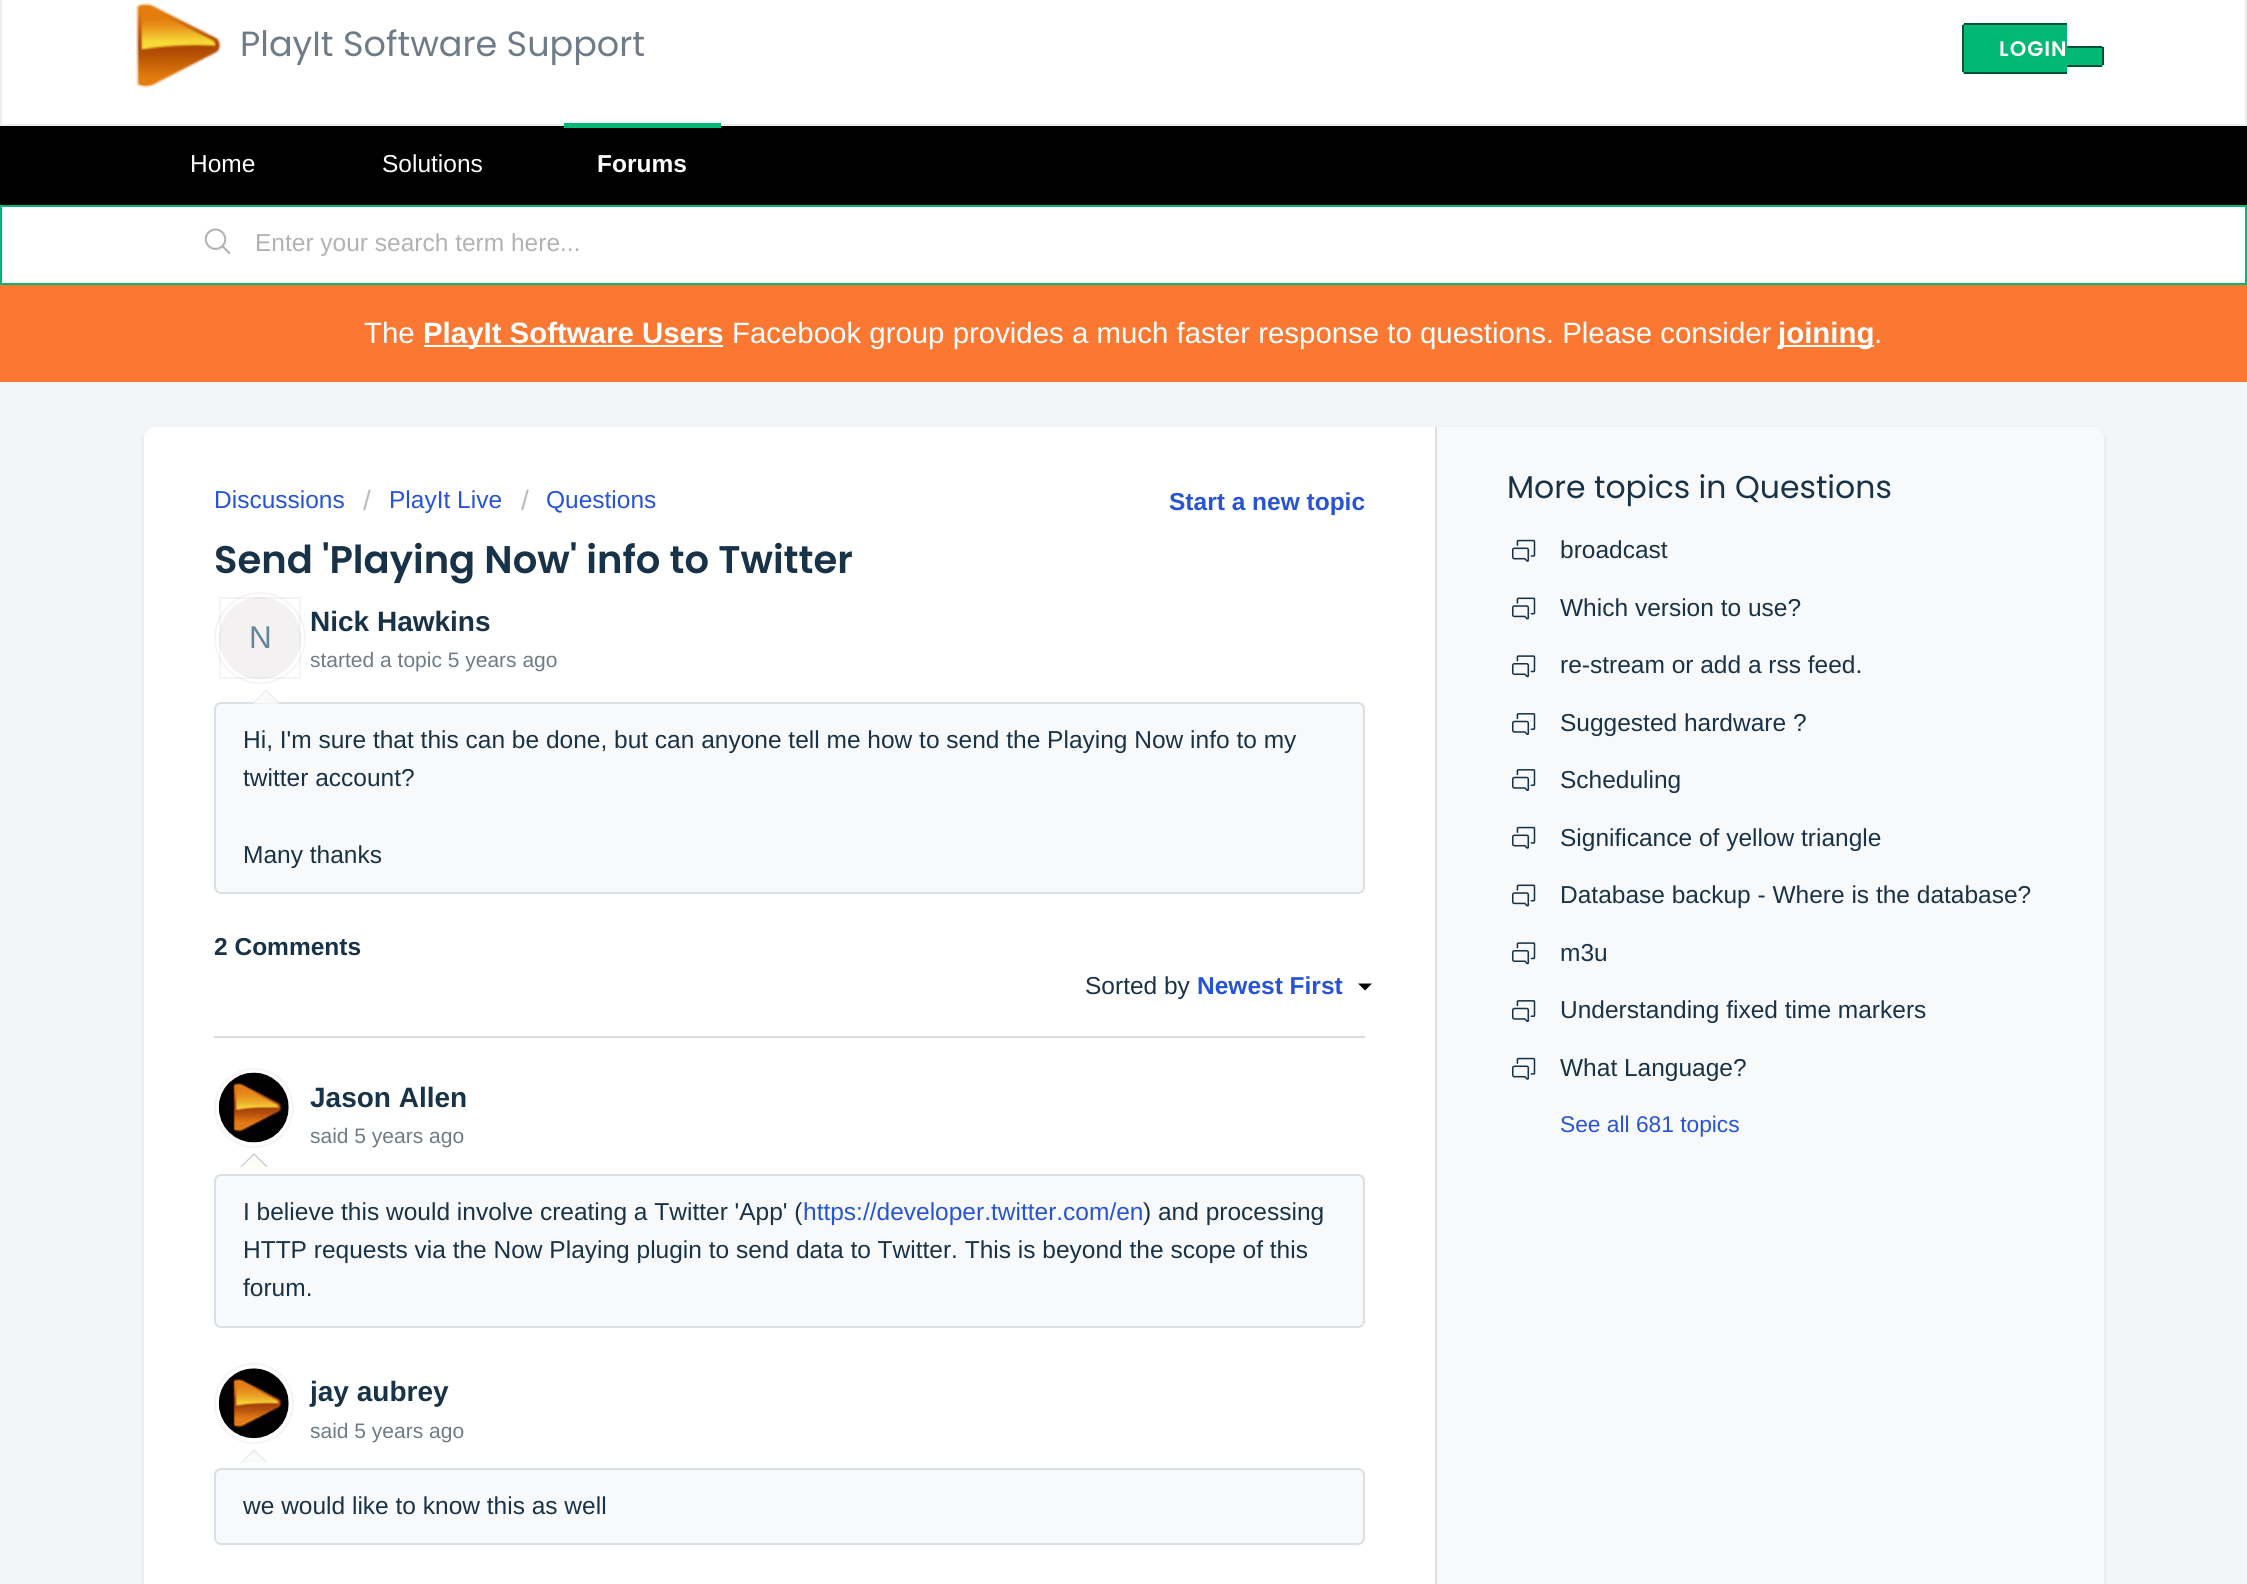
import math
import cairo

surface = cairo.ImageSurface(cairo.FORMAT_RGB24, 2247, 1584)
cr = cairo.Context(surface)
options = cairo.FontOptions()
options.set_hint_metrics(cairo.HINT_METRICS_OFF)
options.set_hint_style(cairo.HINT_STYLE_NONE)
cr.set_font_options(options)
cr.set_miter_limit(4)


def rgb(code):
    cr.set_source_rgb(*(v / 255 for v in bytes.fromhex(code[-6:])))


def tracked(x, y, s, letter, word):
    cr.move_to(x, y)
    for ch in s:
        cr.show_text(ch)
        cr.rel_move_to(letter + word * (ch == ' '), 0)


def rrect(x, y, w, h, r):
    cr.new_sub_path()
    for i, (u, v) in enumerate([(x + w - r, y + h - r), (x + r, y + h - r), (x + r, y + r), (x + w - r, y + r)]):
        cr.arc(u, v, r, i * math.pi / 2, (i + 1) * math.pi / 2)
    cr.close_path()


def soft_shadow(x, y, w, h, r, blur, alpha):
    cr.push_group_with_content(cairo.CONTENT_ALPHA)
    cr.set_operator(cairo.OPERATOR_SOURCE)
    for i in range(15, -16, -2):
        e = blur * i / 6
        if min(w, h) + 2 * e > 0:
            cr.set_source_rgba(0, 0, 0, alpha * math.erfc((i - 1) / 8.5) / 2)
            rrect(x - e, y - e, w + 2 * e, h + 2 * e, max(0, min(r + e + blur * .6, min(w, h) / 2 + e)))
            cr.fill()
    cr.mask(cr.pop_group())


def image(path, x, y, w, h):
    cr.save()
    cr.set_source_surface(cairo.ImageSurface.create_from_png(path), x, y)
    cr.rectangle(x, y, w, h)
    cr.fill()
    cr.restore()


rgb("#f3f5f7")
cr.paint()
rgb("#ffffff")
cr.rectangle(1, -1, 2245, 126)
cr.fill_preserve()
rgb("#ebeef0")
cr.stroke()
image("img/1.png", 136, 3, 85, 85)
rgb("#02b875")
cr.new_path()
cr.move_to(1966, 23)
cr.line_to(2067, 23)
cr.line_to(2067, 74)
cr.line_to(1966, 74)
cr.curve_to(1964, 74, 1962, 72, 1962, 70)
cr.line_to(1962, 27)
cr.curve_to(1962, 25, 1964, 23, 1966, 23)
cr.close_path()
cr.fill()
for x, y, w, h, color in [
    (1964, 23, 103, 2, "#015335"),
    (1964, 72, 103, 2, "#015335"),
    (1962, 25, 2, 47, "#015335"),
]:
    rgb(color)
    cr.rectangle(x, y, w, h)
    cr.fill()
rgb("#02b875")
cr.new_path()
cr.move_to(2067, 46)
cr.line_to(2100, 46)
cr.curve_to(2102, 46, 2104, 48, 2104, 50)
cr.line_to(2104, 63)
cr.curve_to(2104, 65, 2102, 67, 2100, 67)
cr.line_to(2067, 67)
cr.close_path()
cr.fill()
for x, y, w, h, color in [
    (2067, 46, 35, 2, "#015335"),
    (2102, 47, 2, 18, "#015335"),
    (2067, 65, 35, 2, "#015335"),
    (0, 126, 2247, 79, "#000000"),
    (564, 123, 157, 5, "#02b875"),
]:
    rgb(color)
    cr.rectangle(x, y, w, h)
    cr.fill()
rgb("#ffffff")
cr.rectangle(1, 206, 2245, 78)
cr.fill_preserve()
rgb("#02b875")
cr.stroke()
image("img/2.png", 204, 228, 27, 26)
for x, y, w, h, color in [
    (0, 285, 2247, 97, "#fb7832"),
    (424, 345, 299, 2, "#ffffff"),
    (1778, 345, 96, 2, "#ffffff"),
]:
    rgb(color)
    cr.rectangle(x, y, w, h)
    cr.fill()
rgb("#3f3f44")
soft_shadow(144, 429, 1960, 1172, 11, 2, 0.15)
rgb("#f8f9fa")
rrect(144, 427, 1960, 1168, 11)
cr.fill()
rgb("#ffffff")
cr.new_path()
cr.move_to(155, 427)
cr.line_to(1437, 427)
cr.line_to(1437, 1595)
cr.line_to(155, 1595)
cr.curve_to(149, 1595, 144, 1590, 144, 1584)
cr.line_to(144, 438)
cr.curve_to(144, 432, 149, 427, 155, 427)
cr.close_path()
cr.fill()
rgb("#dadfe3")
cr.rectangle(1435, 427, 2, 1157)
cr.fill()
cr.arc(260, 638, 45, 0, 2 * math.pi)
rgb("#f3f5f7")
cr.stroke()
rgb("#f3f1f1")
cr.arc(260, 638, 41, 0, 2 * math.pi)
cr.fill()
cr.rectangle(220, 598, 80, 80)
cr.set_source_rgba(0, 0, 0, 0.04)
cr.stroke()
rgb("#f8f9fa")
rrect(215, 703, 1149, 190, 6)
cr.fill_preserve()
rgb("#dadfe3")
cr.stroke()
rgb("#ebebeb")
cr.new_path()
cr.move_to(280, 703.5)
cr.line_to(252, 703.5)
cr.line_to(266, 689.5)
cr.close_path()
cr.fill()
rgb("#fafafa")
cr.new_path()
cr.move_to(278, 703.5)
cr.line_to(254, 703.5)
cr.line_to(266, 691)
cr.close_path()
cr.fill()
rgb("#000000")
cr.new_path()
cr.move_to(1358, 983.5)
cr.line_to(1372, 983.5)
cr.line_to(1365, 990.5)
cr.close_path()
cr.fill()
rgb("#dcdcdc")
cr.rectangle(214, 1036, 1151, 2)
cr.fill()
cr.arc(254, 1108, 39, 0, 2 * math.pi)
rgb("#f3f5f7")
cr.stroke()
image("img/3.png", 218, 1072, 71, 71)
rgb("#cccccc")
cr.new_path()
cr.move_to(268, 1167)
cr.line_to(240, 1167)
cr.line_to(254, 1153)
cr.close_path()
cr.fill()
rgb("#fffdf8")
cr.new_path()
cr.move_to(266, 1167)
cr.line_to(241.5, 1167)
cr.line_to(254, 1155)
cr.close_path()
cr.fill()
rgb("#f8f9fa")
rrect(215, 1175, 1149, 152, 6)
cr.fill_preserve()
rgb("#dadfe3")
cr.stroke()
rrect(215, 1364, 78, 79, 39)
rgb("#f3f5f7")
cr.stroke()
image("img/4.png", 218, 1368, 71, 71)
rgb("#ebebeb")
cr.new_path()
cr.move_to(268, 1463)
cr.line_to(240, 1463)
cr.line_to(254, 1449)
cr.close_path()
cr.fill()
rgb("#fafafa")
cr.new_path()
cr.move_to(266, 1463)
cr.line_to(241.5, 1463)
cr.line_to(254, 1451)
cr.close_path()
cr.fill()
rgb("#f8f9fa")
rrect(215, 1469, 1149, 75, 6)
cr.fill_preserve()
rgb("#dadfe3")
cr.stroke()
rgb("#f8f9fa")
cr.new_path()
cr.move_to(1437, 427)
cr.line_to(2093, 427)
cr.curve_to(2099, 427, 2104, 432, 2104, 438)
cr.line_to(2104, 1519)
cr.curve_to(2104, 1525, 2099, 1530, 2093, 1530)
cr.line_to(1437, 1530)
cr.close_path()
cr.fill()
image("img/5.png", 1512, 539, 24, 23)
image("img/6.png", 1512, 597, 24, 23)
image("img/7.png", 1512, 655, 24, 23)
image("img/8.png", 1512, 713, 24, 23)
image("img/8.png", 1512, 769, 24, 23)
image("img/5.png", 1512, 826, 24, 23)
image("img/6.png", 1512, 884, 24, 23)
image("img/7.png", 1512, 942, 24, 23)
image("img/8.png", 1512, 1000, 24, 23)
image("img/5.png", 1512, 1057, 24, 23)
cr.select_font_face("Poppins")
cr.set_font_size(35)
rgb("#6f7c87")
cr.move_to(240, 56)
cr.show_text("PlayIt Software Support")
cr.select_font_face("Poppins SemiBold")
cr.set_font_size(21)
rgb("#ffffff")
tracked(1999, 56, "LOGIN", 1, 0)
cr.select_font_face("Liberation Sans")
cr.set_font_size(24.5)
cr.move_to(190, 172)
cr.show_text("Home")
cr.move_to(382, 172)
cr.show_text("Solutions")
cr.select_font_face("Liberation Sans", cairo.FONT_SLANT_NORMAL, cairo.FONT_WEIGHT_BOLD)
cr.move_to(597, 172)
cr.show_text("Forums")
cr.select_font_face("Liberation Sans")
rgb("#b2b2b2")
cr.move_to(255, 251)
cr.show_text("Enter your search term here...")
cr.set_font_size(29.4)
rgb("#ffffff")
cr.move_to(364, 343)
cr.show_text("The")
cr.select_font_face("Liberation Sans", cairo.FONT_SLANT_NORMAL, cairo.FONT_WEIGHT_BOLD)
cr.move_to(423, 343)
cr.show_text("PlayIt Software Users")
cr.select_font_face("Liberation Sans")
cr.move_to(732, 343)
cr.show_text("Facebook group provides a much faster response to questions. Please consider")
cr.select_font_face("Liberation Sans", cairo.FONT_SLANT_NORMAL, cairo.FONT_WEIGHT_BOLD)
cr.move_to(1778, 343)
cr.show_text("joining")
cr.select_font_face("Liberation Sans")
cr.move_to(1874, 343)
cr.show_text(".")
cr.set_font_size(24.5)
rgb("#2753d7")
cr.move_to(214, 508)
cr.show_text("Discussions")
cr.set_font_size(28)
rgb("#bbbbbb")
cr.move_to(363, 510)
cr.show_text("/")
cr.set_font_size(24.5)
rgb("#2753d7")
cr.move_to(389, 508)
cr.show_text("PlayIt Live")
cr.set_font_size(28)
rgb("#bbbbbb")
cr.move_to(521, 510)
cr.show_text("/")
cr.set_font_size(24.5)
rgb("#2753d7")
cr.move_to(546, 508)
cr.show_text("Questions")
cr.select_font_face("Liberation Sans", cairo.FONT_SLANT_NORMAL, cairo.FONT_WEIGHT_BOLD)
cr.move_to(1169, 510)
cr.show_text("Start a new topic")
cr.select_font_face("Poppins SemiBold")
cr.set_font_size(38.5)
rgb("#183247")
cr.move_to(214, 573)
cr.show_text("Send 'Playing Now' info to Twitter")
cr.select_font_face("Liberation Sans")
cr.set_font_size(31.5)
rgb("#638699")
cr.move_to(249, 648)
cr.show_text("N")
cr.select_font_face("Liberation Sans", cairo.FONT_SLANT_NORMAL, cairo.FONT_WEIGHT_BOLD)
cr.set_font_size(28)
rgb("#183247")
cr.move_to(310, 631)
cr.show_text("Nick Hawkins")
cr.select_font_face("Liberation Sans")
cr.set_font_size(21)
rgb("#6f7c87")
cr.move_to(310, 667)
cr.show_text("started a topic 5 years ago")
cr.set_font_size(24.5)
rgb("#183247")
for x, y, s in [
    (243, 748, "Hi, I'm sure that this can be done, but can anyone tell me how to send the Playing Now info to my"),
    (243, 786, "twitter account?"),
    (243, 863, "Many thanks"),
]:
    cr.move_to(x, y)
    cr.show_text(s)
cr.select_font_face("Liberation Sans", cairo.FONT_SLANT_NORMAL, cairo.FONT_WEIGHT_BOLD)
cr.move_to(214, 955)
cr.show_text("2 Comments")
cr.select_font_face("Liberation Sans")
cr.move_to(1085, 994)
cr.show_text("Sorted by")
cr.select_font_face("Liberation Sans", cairo.FONT_SLANT_NORMAL, cairo.FONT_WEIGHT_BOLD)
rgb("#2753d7")
cr.move_to(1197, 994)
cr.show_text("Newest First")
cr.set_font_size(28)
rgb("#183247")
cr.move_to(310, 1107)
cr.show_text("Jason Allen")
cr.select_font_face("Liberation Sans")
cr.set_font_size(21)
rgb("#6f7c87")
cr.move_to(310, 1143)
cr.show_text("said 5 years ago")
cr.set_font_size(24.5)
rgb("#183247")
cr.move_to(243, 1220)
cr.show_text("I believe this would involve creating a Twitter 'App' (")
rgb("#2753d7")
cr.move_to(803, 1220)
cr.show_text("https://developer.twitter.com/en")
rgb("#183247")
for x, y, s in [
    (1143, 1220, ") and processing"),
    (243, 1258, "HTTP requests via the Now Playing plugin to send data to Twitter. This is beyond the scope of this"),
    (243, 1296, "forum."),
]:
    cr.move_to(x, y)
    cr.show_text(s)
cr.select_font_face("Liberation Sans", cairo.FONT_SLANT_NORMAL, cairo.FONT_WEIGHT_BOLD)
cr.set_font_size(28)
cr.move_to(310, 1401)
cr.show_text("jay aubrey")
cr.select_font_face("Liberation Sans")
cr.set_font_size(21)
rgb("#6f7c87")
cr.move_to(310, 1438)
cr.show_text("said 5 years ago")
cr.set_font_size(24.5)
rgb("#183247")
cr.move_to(243, 1514)
cr.show_text("we would like to know this as well")
cr.select_font_face("Poppins")
cr.set_font_size(31.5)
cr.move_to(1507, 498)
cr.show_text("More topics in Questions")
cr.select_font_face("Liberation Sans")
cr.set_font_size(24.5)
for x, y, s in [
    (1560, 558, "broadcast"),
    (1560, 616, "Which version to use?"),
    (1560, 673, "re-stream or add a rss feed."),
    (1560, 731, "Suggested hardware ?"),
    (1560, 788, "Scheduling"),
    (1560, 846, "Significance of yellow triangle"),
    (1560, 903, "Database backup - Where is the database?"),
    (1560, 961, "m3u"),
    (1560, 1018, "Understanding fixed time markers"),
    (1560, 1076, "What Language?"),
]:
    cr.move_to(x, y)
    cr.show_text(s)
cr.set_font_size(22.75)
rgb("#2753d7")
cr.move_to(1560, 1132)
cr.show_text("See all 681 topics")
surface.write_to_png("page.png")
